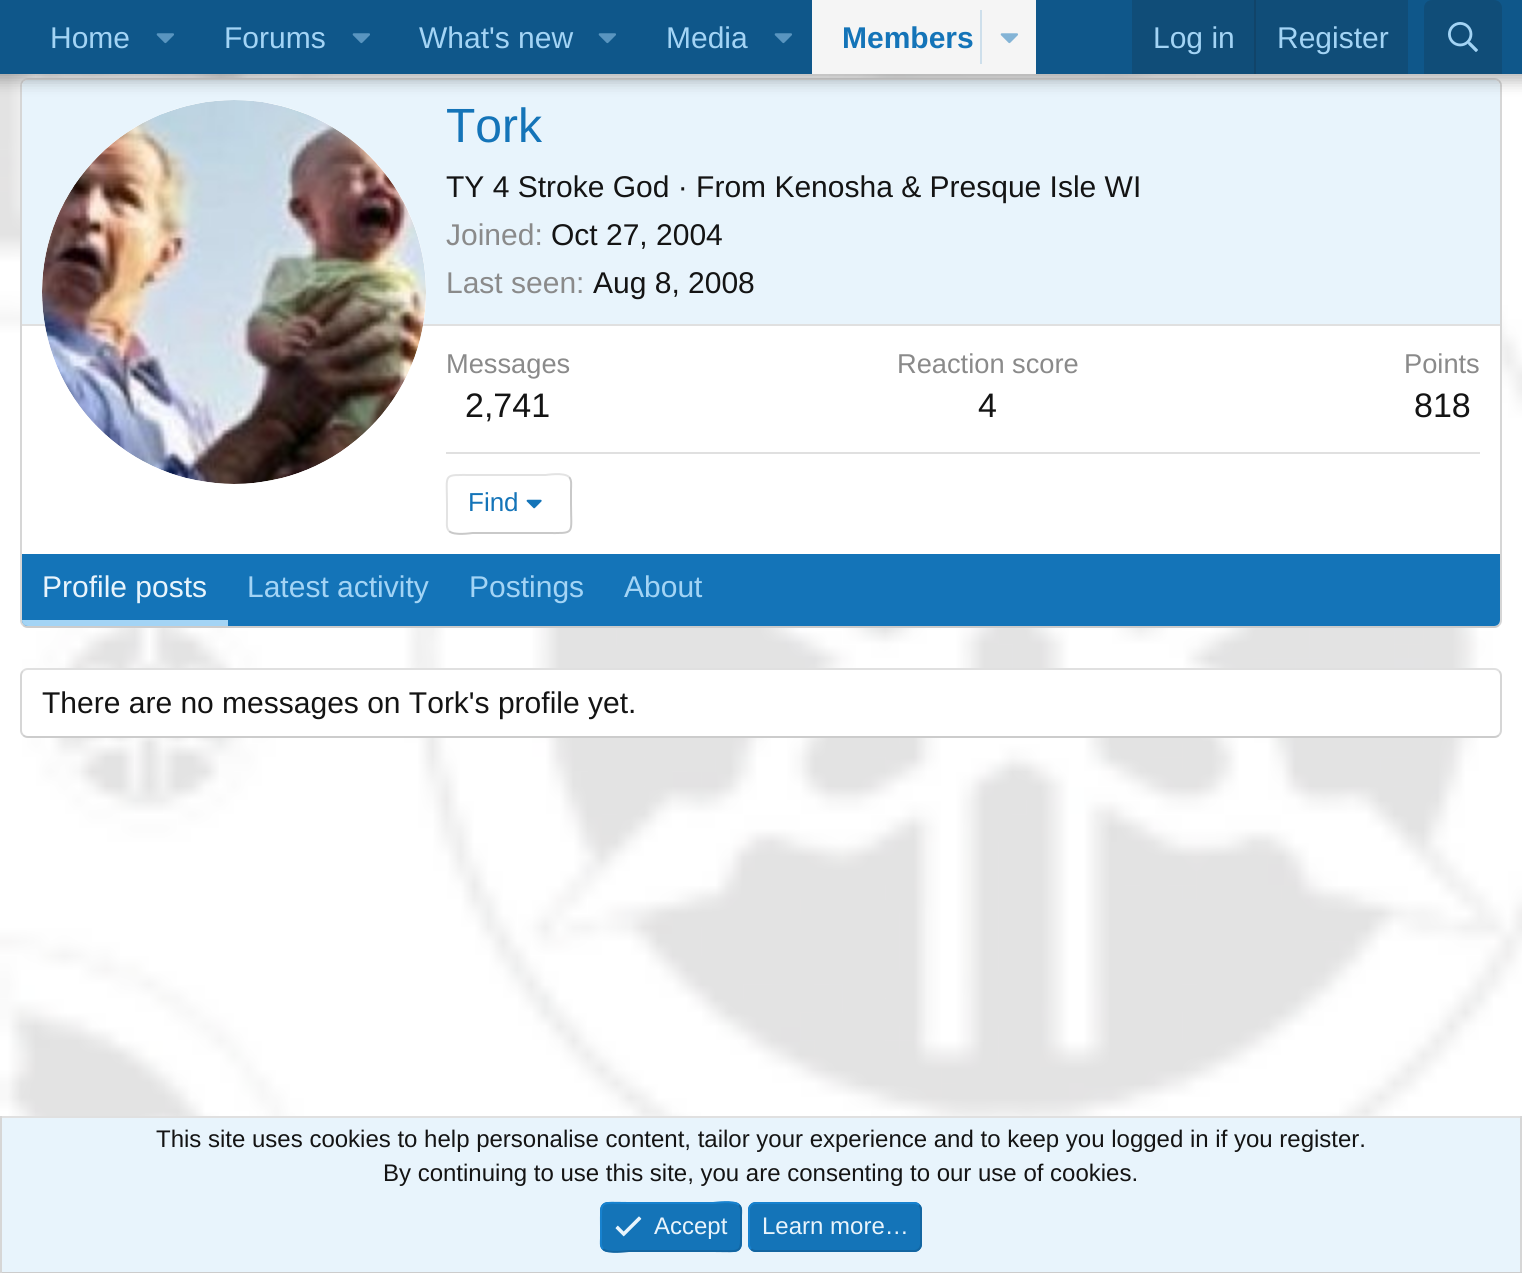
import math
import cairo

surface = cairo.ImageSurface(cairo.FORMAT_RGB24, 1522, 1273)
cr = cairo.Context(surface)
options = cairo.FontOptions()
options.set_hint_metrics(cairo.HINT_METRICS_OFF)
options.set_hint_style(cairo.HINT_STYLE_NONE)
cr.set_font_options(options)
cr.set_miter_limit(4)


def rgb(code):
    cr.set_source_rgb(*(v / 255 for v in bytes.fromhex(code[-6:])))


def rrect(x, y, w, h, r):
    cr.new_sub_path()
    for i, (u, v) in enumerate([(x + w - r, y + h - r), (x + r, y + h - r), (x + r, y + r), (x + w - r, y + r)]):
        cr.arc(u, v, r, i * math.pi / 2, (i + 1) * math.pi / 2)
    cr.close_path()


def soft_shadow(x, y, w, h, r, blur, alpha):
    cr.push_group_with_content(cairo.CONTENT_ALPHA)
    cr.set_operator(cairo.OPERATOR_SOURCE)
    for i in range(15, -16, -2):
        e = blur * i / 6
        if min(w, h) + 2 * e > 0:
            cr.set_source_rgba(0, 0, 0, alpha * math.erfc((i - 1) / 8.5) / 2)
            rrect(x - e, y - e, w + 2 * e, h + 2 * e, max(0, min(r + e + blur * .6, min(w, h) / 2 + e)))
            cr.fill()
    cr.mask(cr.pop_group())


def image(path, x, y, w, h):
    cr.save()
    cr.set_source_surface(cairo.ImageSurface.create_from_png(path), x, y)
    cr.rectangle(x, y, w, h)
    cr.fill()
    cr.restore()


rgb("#ffffff")
cr.paint()
image("img/4.png", 0, 74, 1522, 1042)
rgb("#ffffff")
rrect(20, 78, 1482, 550, 8)
cr.fill()
cr.new_path()
cr.move_to(23, 81)
cr.curve_to(24.5, 79.5, 26, 79, 28, 79)
cr.line_to(1494, 79)
cr.curve_to(1496, 79, 1497.5, 79.5, 1499, 81)
rgb("#e0e0e0")
cr.stroke()
cr.new_path()
cr.move_to(1499, 81)
cr.curve_to(1500.5, 82.5, 1501, 84, 1501, 86)
cr.line_to(1501, 620)
cr.curve_to(1501, 622, 1500.5, 623.5, 1499, 625)
rgb("#d6d6d6")
cr.stroke()
cr.new_path()
cr.move_to(1499, 625)
cr.curve_to(1497.5, 626.5, 1496, 627, 1494, 627)
cr.line_to(28, 627)
cr.curve_to(26, 627, 24.5, 626.5, 23, 625)
rgb("#cccccc")
cr.stroke()
cr.new_path()
cr.move_to(23, 625)
cr.curve_to(21.5, 623.5, 21, 622, 21, 620)
cr.line_to(21, 86)
cr.curve_to(21, 84, 21.5, 82.5, 23, 81)
rgb("#d6d6d6")
cr.stroke()
rgb("#e8f4fc")
cr.new_path()
cr.move_to(28, 80)
cr.line_to(1494, 80)
cr.curve_to(1497.5, 80, 1500, 82.5, 1500, 86)
cr.line_to(1500, 326)
cr.line_to(22, 326)
cr.line_to(22, 86)
cr.curve_to(22, 82.5, 24.5, 80, 28, 80)
cr.close_path()
cr.fill()
rgb("#e0e0e0")
cr.rectangle(22, 324, 1478, 2)
cr.fill()
rgb("#ffffff")
cr.arc(234, 292, 192, 0, 2 * math.pi)
cr.fill()
image("img/5.png", 42, 100, 384, 384)
rgb("#000000")
soft_shadow(-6, -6, 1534, 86, 0, 8, 0.3)
rgb("#0f578a")
cr.rectangle(0, 0, 1522, 74)
cr.fill()
image("img/1.png", 156, 33, 18, 11)
image("img/1.png", 352, 33, 18, 11)
image("img/1.png", 598, 33, 18, 11)
image("img/1.png", 774, 33, 18, 11)
rgb("#f5f5f5")
cr.rectangle(812, 0, 224, 74)
cr.fill()
rgb("#cedfeb")
cr.rectangle(980, 10, 2, 54)
cr.fill()
image("img/2.png", 1000, 33, 18, 11)
rgb("#104d78")
cr.rectangle(1132, 0, 276, 74)
cr.fill()
rgb("#114469")
cr.rectangle(1254, 0, 2, 74)
cr.fill()
rgb("#104d78")
cr.new_path()
cr.move_to(1432, 0)
cr.line_to(1494, 0)
cr.curve_to(1498.5, 0, 1502, 3.5, 1502, 8)
cr.line_to(1502, 74)
cr.line_to(1424, 74)
cr.line_to(1424, 8)
cr.curve_to(1424, 3.5, 1427.5, 0, 1432, 0)
cr.close_path()
cr.fill()
image("img/3.png", 1448, 22, 30, 30)
rgb("#e0e0e0")
cr.rectangle(446, 452, 1034, 2)
cr.fill()
cr.new_path()
cr.move_to(569, 477)
cr.curve_to(572, 480, 571, 485.5, 571, 489.5)
cr.line_to(571, 504)
cr.curve_to(571, 535.5, 576, 533, 545.5, 533)
cr.line_to(472.5, 533)
cr.curve_to(471.5, 533, 454, 536, 449, 531)
rgb("#c9c9c9")
cr.stroke()
cr.new_path()
cr.move_to(449, 531)
cr.curve_to(446, 528, 447, 522.5, 447, 518.5)
cr.line_to(447, 504)
cr.curve_to(447, 472.5, 442, 475, 472.5, 475)
cr.line_to(545.5, 475)
cr.curve_to(546.5, 475, 564, 472, 569, 477)
rgb("#e3e3e3")
cr.stroke()
image("img/6.png", 526, 499, 16, 10)
rgb("#1474b8")
cr.new_path()
cr.move_to(22, 554)
cr.line_to(1500, 554)
cr.line_to(1500, 620)
cr.curve_to(1500, 623.5, 1497.5, 626, 1494, 626)
cr.line_to(28, 626)
cr.curve_to(24.5, 626, 22, 623.5, 22, 620)
cr.close_path()
cr.fill()
rgb("#a3d4f5")
cr.new_path()
cr.move_to(22, 620)
cr.line_to(228, 620)
cr.line_to(228, 626)
cr.line_to(28, 626)
cr.curve_to(24.5, 626, 22, 623.5, 22, 620)
cr.close_path()
cr.fill()
rgb("#ffffff")
rrect(20, 668, 1482, 70, 8)
cr.fill()
cr.new_path()
cr.move_to(23, 671)
cr.curve_to(24.5, 669.5, 26, 669, 28, 669)
cr.line_to(1494, 669)
cr.curve_to(1496, 669, 1497.5, 669.5, 1499, 671)
rgb("#e0e0e0")
cr.stroke()
cr.new_path()
cr.move_to(1499, 671)
cr.curve_to(1500.5, 672.5, 1501, 674, 1501, 676)
cr.line_to(1501, 730)
cr.curve_to(1501, 732, 1500.5, 733.5, 1499, 735)
rgb("#d6d6d6")
cr.stroke()
cr.new_path()
cr.move_to(1499, 735)
cr.curve_to(1497.5, 736.5, 1496, 737, 1494, 737)
cr.line_to(28, 737)
cr.curve_to(26, 737, 24.5, 736.5, 23, 735)
rgb("#cccccc")
cr.stroke()
cr.new_path()
cr.move_to(23, 735)
cr.curve_to(21.5, 733.5, 21, 732, 21, 730)
cr.line_to(21, 676)
cr.curve_to(21, 674, 21.5, 672.5, 23, 671)
rgb("#d6d6d6")
cr.stroke()
for x, y, w, h, color in [
    (2, 1118, 1518, 154, "#e8f4fc"),
    (0, 1116, 1522, 2, "#e0e0e0"),
    (1520, 1116, 2, 157, "#d6d6d6"),
    (0, 1272, 1522, 1, "#cccccc"),
    (0, 1116, 2, 157, "#d6d6d6"),
]:
    rgb(color)
    cr.rectangle(x, y, w, h)
    cr.fill()
rgb("#1474b8")
rrect(600, 1202, 142, 50, 8)
cr.fill()
cr.new_path()
cr.move_to(739, 1205)
cr.curve_to(742, 1208, 741, 1212, 741, 1215.5)
cr.line_to(741, 1227)
cr.curve_to(741, 1255, 743.5, 1251, 713, 1251)
cr.line_to(629, 1251)
cr.curve_to(627, 1251, 608, 1254, 603, 1249)
rgb("#1265a1")
cr.stroke()
cr.new_path()
cr.move_to(603, 1249)
cr.curve_to(600, 1246, 601, 1242, 601, 1238.5)
cr.line_to(601, 1227)
cr.curve_to(601, 1199, 598.5, 1203, 629, 1203)
cr.line_to(713, 1203)
cr.curve_to(715, 1203, 734, 1200, 739, 1205)
rgb("#1782cf")
cr.stroke()
image("img/7.png", 615, 1216, 27, 21)
rgb("#1474b8")
rrect(748, 1202, 174, 50, 8)
cr.fill()
cr.new_path()
cr.move_to(919, 1205)
cr.curve_to(920.5, 1206.5, 921, 1208, 921, 1210)
cr.line_to(921, 1244)
cr.curve_to(921, 1246, 920.5, 1247.5, 919, 1249)
cr.curve_to(917.5, 1250.5, 916, 1251, 914, 1251)
cr.line_to(756, 1251)
cr.curve_to(754, 1251, 752.5, 1250.5, 751, 1249)
rgb("#1265a1")
cr.stroke()
cr.new_path()
cr.move_to(751, 1249)
cr.curve_to(749.5, 1247.5, 749, 1246, 749, 1244)
cr.line_to(749, 1210)
cr.curve_to(749, 1208, 749.5, 1206.5, 751, 1205)
cr.curve_to(752.5, 1203.5, 754, 1203, 756, 1203)
cr.line_to(914, 1203)
cr.curve_to(916, 1203, 917.5, 1203.5, 919, 1205)
rgb("#1782cf")
cr.stroke()
cr.select_font_face("Liberation Sans")
cr.set_font_size(30)
rgb("#a3d4f5")
for x, y, s in [
    (50, 48, "Home"),
    (224, 48, "Forums"),
    (419, 48, "What's new"),
    (666, 48, "Media"),
]:
    cr.move_to(x, y)
    cr.show_text(s)
cr.select_font_face("Liberation Sans", cairo.FONT_SLANT_NORMAL, cairo.FONT_WEIGHT_BOLD)
rgb("#1474b8")
cr.move_to(842, 48)
cr.show_text("Members")
cr.select_font_face("Liberation Sans")
rgb("#a3d4f5")
cr.move_to(1153, 48)
cr.show_text("Log in")
cr.move_to(1277, 48)
cr.show_text("Register")
cr.set_font_size(48)
rgb("#1474b8")
cr.move_to(446, 142)
cr.show_text("Tork")
cr.set_font_size(30)
rgb("#141414")
cr.move_to(446, 197)
cr.show_text("TY 4 Stroke God · From Kenosha & Presque Isle WI")
rgb("#8a8a8a")
cr.move_to(446, 245)
cr.show_text("Joined:")
rgb("#141414")
cr.move_to(551, 245)
cr.show_text("Oct 27, 2004")
rgb("#8a8a8a")
cr.move_to(446, 293)
cr.show_text("Last seen:")
rgb("#141414")
cr.move_to(593, 293)
cr.show_text("Aug 8, 2008")
cr.set_font_size(27.25)
rgb("#8a8a8a")
cr.move_to(446, 373)
cr.show_text("Messages")
cr.set_font_size(34)
rgb("#141414")
cr.move_to(465, 417)
cr.show_text("2,741")
cr.set_font_size(27.25)
rgb("#8a8a8a")
cr.move_to(897, 373)
cr.show_text("Reaction score")
cr.set_font_size(34)
rgb("#141414")
cr.move_to(978, 417)
cr.show_text("4")
cr.set_font_size(27.25)
rgb("#8a8a8a")
cr.move_to(1404, 373)
cr.show_text("Points")
cr.set_font_size(34)
rgb("#141414")
cr.move_to(1414, 417)
cr.show_text("818")
cr.set_font_size(26)
rgb("#1474b8")
cr.move_to(468, 511)
cr.show_text("Find")
cr.set_font_size(30)
rgb("#e8f4fc")
cr.move_to(42, 597)
cr.show_text("Profile posts")
rgb("#a3d4f5")
for x, y, s in [
    (247, 597, "Latest activity"),
    (469, 597, "Postings"),
    (624, 597, "About"),
]:
    cr.move_to(x, y)
    cr.show_text(s)
rgb("#141414")
cr.move_to(42, 713)
cr.show_text("There are no messages on Tork's profile yet.")
cr.set_font_size(24)
cr.move_to(156, 1147)
cr.show_text("This site uses cookies to help personalise content, tailor your experience and to keep you logged in if you register.")
cr.move_to(383, 1181)
cr.show_text("By continuing to use this site, you are consenting to our use of cookies.")
rgb("#e8f4fc")
cr.move_to(654, 1234)
cr.show_text("Accept")
cr.move_to(762, 1234)
cr.show_text("Learn more…")
surface.write_to_png("page.png")
